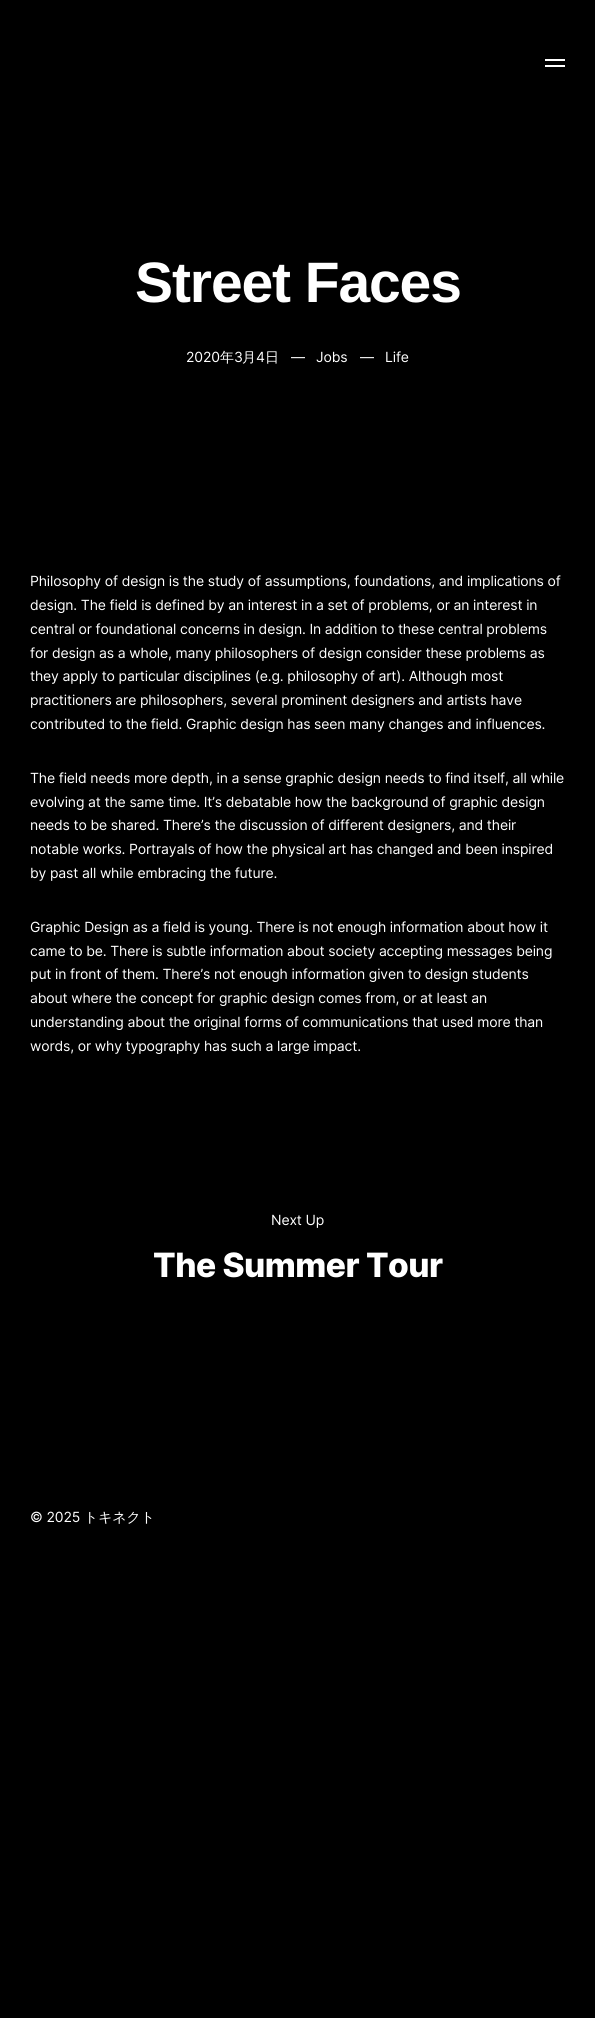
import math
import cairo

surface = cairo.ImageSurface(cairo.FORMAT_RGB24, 595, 2018)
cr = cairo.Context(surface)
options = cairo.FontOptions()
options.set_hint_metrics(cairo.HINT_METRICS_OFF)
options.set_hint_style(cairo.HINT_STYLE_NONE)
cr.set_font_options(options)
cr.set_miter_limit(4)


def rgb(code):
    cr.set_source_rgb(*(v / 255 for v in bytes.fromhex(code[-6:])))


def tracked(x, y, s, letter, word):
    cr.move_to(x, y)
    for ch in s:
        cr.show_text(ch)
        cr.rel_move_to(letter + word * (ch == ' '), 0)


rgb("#000000")
cr.paint()
rgb("#ffffff")
cr.rectangle(545, 59, 20, 2)
cr.fill()
cr.rectangle(545, 65, 20, 2)
cr.fill()
cr.select_font_face("Liberation Sans", cairo.FONT_SLANT_NORMAL, cairo.FONT_WEIGHT_BOLD)
cr.set_font_size(57)
tracked(135, 302, "Street Faces", -1.1, 0)
cr.select_font_face("Inter")
cr.set_font_size(14)
tracked(186, 362, "2020", -0.15, 0)
cr.select_font_face("WenQuanYi Zen Hei Medium")
tracked(220, 362, "年", -0.15, 0)
cr.select_font_face("Inter")
tracked(234, 362, "3", -0.15, 0)
cr.select_font_face("WenQuanYi Zen Hei Medium")
tracked(242, 362, "月", -0.15, 0)
cr.select_font_face("Inter")
tracked(256, 362, "4", -0.15, 0)
cr.select_font_face("WenQuanYi Zen Hei Medium")
tracked(265, 362, "日", -0.15, 0)
cr.select_font_face("Inter")
for x, y, s in [
    (291, 362, "—"),
    (316, 362, "Jobs"),
    (360, 362, "—"),
    (385, 362, "Life"),
    (30, 586, "Philosophy of design is the study of assumptions, foundations, and implications of"),
    (30, 610, "design. The field is defined by an interest in a set of problems, or an interest in"),
    (30, 634, "central or foundational concerns in design. In addition to these central problems"),
    (30, 658, "for design as a whole, many philosophers of design consider these problems as"),
    (30, 681, "they apply to particular disciplines (e.g. philosophy of art). Although most"),
    (30, 705, "practitioners are philosophers, several prominent designers and artists have"),
    (30, 729, "contributed to the field. Graphic design has seen many changes and influences."),
    (30, 783, "The field needs more depth, in a sense graphic design needs to find itself, all while"),
    (30, 807, "evolving at the same time. It’s debatable how the background of graphic design"),
    (30, 830, "needs to be shared. There’s the discussion of different designers, and their"),
    (30, 854, "notable works. Portrayals of how the physical art has changed and been inspired"),
    (30, 878, "by past all while embracing the future."),
    (30, 932, "Graphic Design as a field is young. There is not enough information about how it"),
    (30, 956, "came to be. There is subtle information about society accepting messages being"),
    (30, 979, "put in front of them. There’s not enough information given to design students"),
    (30, 1003, "about where the concept for graphic design comes from, or at least an"),
    (30, 1027, "understanding about the original forms of communications that used more than"),
    (30, 1051, "words, or why typography has such a large impact."),
    (271, 1225, "Next Up"),
]:
    tracked(x, y, s, -0.15, 0)
cr.select_font_face("Inter ExtraBold")
cr.set_font_size(33.5)
tracked(153, 1277, "The Summer Tour", -0.5, 0)
cr.select_font_face("Inter")
cr.set_font_size(14)
tracked(30, 1522, "© 2025", -0.15, 0)
cr.select_font_face("WenQuanYi Zen Hei Medium")
tracked(84, 1522, "トキネクト", -0.15, 0)
surface.write_to_png("page.png")
